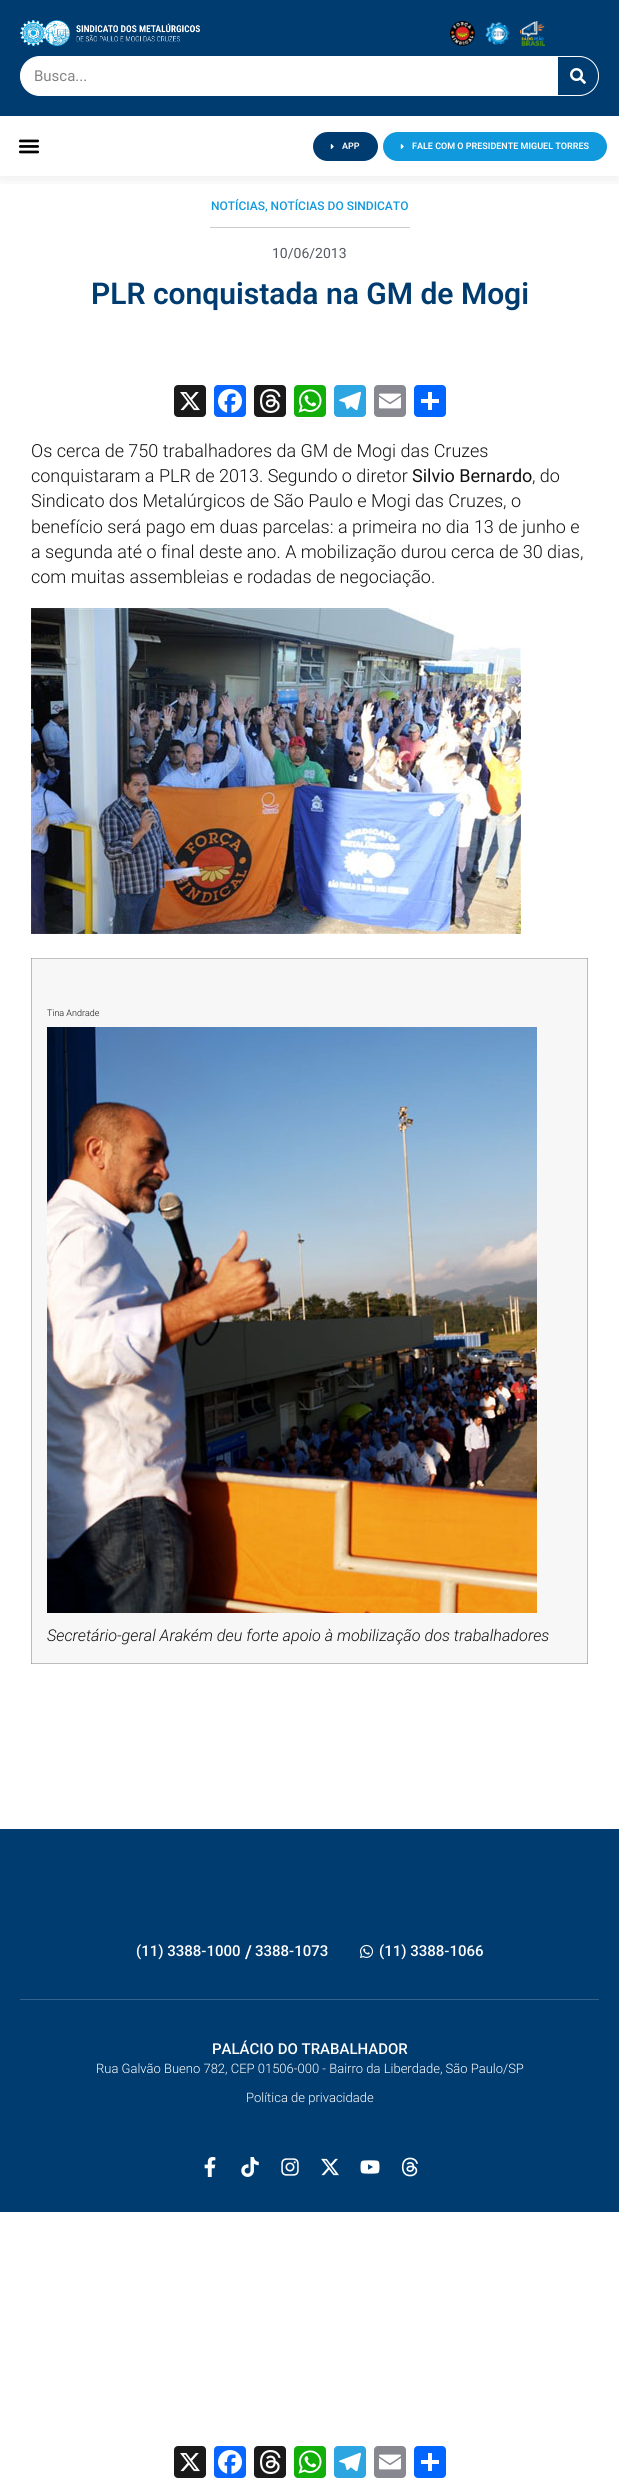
import math
import cairo

surface = cairo.ImageSurface(cairo.FORMAT_RGB24, 619, 2486)
cr = cairo.Context(surface)
options = cairo.FontOptions()
options.set_hint_metrics(cairo.HINT_METRICS_OFF)
options.set_hint_style(cairo.HINT_STYLE_NONE)
cr.set_font_options(options)
cr.set_miter_limit(4)


def rgb(code):
    cr.set_source_rgb(*(v / 255 for v in bytes.fromhex(code[-6:])))


def rrect(x, y, w, h, r):
    cr.new_sub_path()
    for i, (u, v) in enumerate([(x + w - r, y + h - r), (x + r, y + h - r), (x + r, y + r), (x + w - r, y + r)]):
        cr.arc(u, v, r, i * math.pi / 2, (i + 1) * math.pi / 2)
    cr.close_path()


def soft_shadow(x, y, w, h, r, blur, alpha):
    cr.push_group_with_content(cairo.CONTENT_ALPHA)
    cr.set_operator(cairo.OPERATOR_SOURCE)
    for i in range(15, -16, -2):
        e = blur * i / 6
        if min(w, h) + 2 * e > 0:
            cr.set_source_rgba(0, 0, 0, alpha * math.erfc((i - 1) / 8.5) / 2)
            rrect(x - e, y - e, w + 2 * e, h + 2 * e, max(0, min(r + e + blur * .6, min(w, h) / 2 + e)))
            cr.fill()
    cr.mask(cr.pop_group())


def image(path, x, y, w, h):
    cr.save()
    cr.set_source_surface(cairo.ImageSurface.create_from_png(path), x, y)
    cr.rectangle(x, y, w, h)
    cr.fill()
    cr.restore()


rgb("#ffffff")
cr.paint()
cr.save()
cr.rectangle(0, 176, 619, 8)
cr.clip()
rgb("#000000")
soft_shadow(0, 0, 619, 176, 0, 10, 0.1)
cr.restore()
rgb("#003c70")
cr.rectangle(0, 0, 619, 116)
cr.fill()
image("img/1.png", 20, 20, 180, 26)
image("img/2.png", 450, 21, 25, 25)
image("img/3.png", 485, 22, 25, 23)
image("img/4.png", 520, 21, 25, 25)
rgb("#ffffff")
rrect(20.5, 56.5, 578, 39, 19.5)
cr.fill_preserve()
cr.set_line_width(1)
cr.stroke()
rgb("#003c70")
cr.new_path()
cr.move_to(558, 57)
cr.line_to(579, 57)
cr.curve_to(589.5, 57, 598, 65.5, 598, 76)
cr.curve_to(598, 86.5, 589.5, 95, 579, 95)
cr.line_to(558, 95)
cr.close_path()
cr.fill()
image("img/5.png", 570, 68, 16, 16)
image("img/6.png", 18, 139, 22, 15)
rrect(313, 132, 65, 29, 14.5)
cr.fill()
image("img/7.png", 330, 144, 4, 5)
rgb("#1199dd")
rrect(383, 132, 224, 29, 14.5)
cr.fill()
image("img/8.png", 400, 144, 4, 5)
rgb("#cccccc")
cr.rectangle(210, 227, 200, 1)
cr.fill()
rgb("#1a1a1a")
rrect(174, 385, 32, 32, 4)
cr.fill()
image("img/9.png", 180, 392, 20, 19)
rgb("#0866ff")
rrect(214, 385, 32, 32, 4)
cr.fill()
image("img/10.png", 218, 389, 24, 24)
rgb("#1a1a1a")
rrect(254, 385, 32, 32, 4)
cr.fill()
image("img/11.png", 260, 389, 21, 24)
rgb("#12af0a")
rrect(294, 385, 32, 32, 4)
cr.fill()
image("img/12.png", 298, 389, 24, 24)
rgb("#2ca5e0")
rrect(334, 385, 32, 32, 4)
cr.fill()
image("img/13.png", 339, 391, 22, 20)
rgb("#888990")
rrect(374, 385, 32, 32, 4)
cr.fill()
image("img/14.png", 379, 393, 22, 16)
rgb("#0166ff")
rrect(414, 385, 32, 32, 4)
cr.fill()
rgb("#ffffff")
cr.rectangle(428, 392, 4, 18)
cr.fill()
cr.rectangle(421, 399, 18, 4)
cr.fill()
image("img/15.png", 31, 608, 490, 326)
for x, y, w, h, color in [
    (32, 959, 555, 704, "#f7f7f7"),
    (31, 959, 1, 705, "#bcbcbc"),
    (31, 1663, 557, 1, "#bcbcbc"),
    (31, 1663, 1, 1, "#9e9e9e"),
    (587, 959, 1, 705, "#bcbcbc"),
    (587, 1663, 1, 1, "#9e9e9e"),
    (31, 958, 557, 1, "#c0c0c0"),
    (31, 958, 1, 1, "#a0a0a0"),
    (587, 958, 1, 1, "#a0a0a0"),
]:
    rgb(color)
    cr.rectangle(x, y, w, h)
    cr.fill()
image("img/16.png", 47, 1027, 490, 586)
rgb("#003c70")
cr.rectangle(0, 1829, 619, 383)
cr.fill()
rgb("#33638d")
cr.rectangle(20, 1999, 579, 1)
cr.fill()
image("img/17.png", 360, 1944, 14, 14)
image("img/18.png", 204, 2157, 12, 20)
image("img/19.png", 241, 2157, 18, 20)
image("img/20.png", 281, 2158, 18, 18)
image("img/21.png", 321, 2158, 18, 18)
image("img/22.png", 360, 2160, 20, 14)
image("img/23.png", 401, 2157, 17, 20)
rgb("#1a1a1a")
rrect(174, 2446, 32, 32, 4)
cr.fill()
image("img/9.png", 180, 2453, 20, 19)
rgb("#0866ff")
rrect(214, 2446, 32, 32, 4)
cr.fill()
image("img/10.png", 218, 2450, 24, 24)
rgb("#1a1a1a")
rrect(254, 2446, 32, 32, 4)
cr.fill()
image("img/11.png", 260, 2450, 21, 24)
rgb("#12af0a")
rrect(294, 2446, 32, 32, 4)
cr.fill()
image("img/12.png", 298, 2450, 24, 24)
rgb("#2ca5e0")
rrect(334, 2446, 32, 32, 4)
cr.fill()
image("img/13.png", 339, 2452, 22, 20)
rgb("#888990")
rrect(374, 2446, 32, 32, 4)
cr.fill()
image("img/14.png", 379, 2454, 22, 16)
rgb("#0166ff")
rrect(414, 2446, 32, 32, 4)
cr.fill()
rgb("#ffffff")
cr.rectangle(428, 2453, 4, 18)
cr.fill()
cr.rectangle(421, 2460, 18, 4)
cr.fill()
cr.select_font_face("Roboto")
cr.set_font_size(15)
rgb("#858585")
cr.move_to(34, 81)
cr.show_text("Busca...")
cr.select_font_face("Roboto SemiBold")
cr.set_font_size(9)
rgb("#ffffff")
cr.move_to(342, 149)
cr.show_text("APP")
cr.move_to(412, 149)
cr.show_text("FALE COM O PRESIDENTE MIGUEL TORRES")
cr.select_font_face("Roboto Medium")
cr.set_font_size(12)
rgb("#1199dd")
cr.move_to(211, 210)
cr.show_text("NOTÍCIAS, NOTÍCIAS DO SINDICATO")
cr.select_font_face("Roboto")
cr.set_font_size(14)
rgb("#54595f")
cr.move_to(272, 258)
cr.show_text("10/06/2013")
cr.select_font_face("Roboto SemiBold")
cr.set_font_size(30)
rgb("#003c70")
cr.move_to(91, 304)
cr.show_text("PLR conquistada na GM de Mogi")
cr.select_font_face("Roboto Light")
cr.set_font_size(18)
rgb("#111111")
cr.move_to(31, 457)
cr.show_text("Os cerca de 750 trabalhadores da GM de Mogi das Cruzes")
cr.move_to(31, 482)
cr.show_text("conquistaram a PLR de 2013. Segundo o diretor")
cr.select_font_face("Roboto")
cr.move_to(412, 482)
cr.show_text("Silvio Bernardo")
cr.select_font_face("Roboto Light")
for x, y, s in [
    (532, 482, ", do"),
    (31, 507, "Sindicato dos Metalúrgicos de São Paulo e Mogi das Cruzes, o"),
    (31, 533, "benefício será pago em duas parcelas: a primeira no dia 13 de junho e"),
    (31, 558, "a segunda até o final deste ano. A mobilização durou cerca de 30 dias,"),
    (31, 583, "com muitas assembleias e rodadas de negociação."),
]:
    cr.move_to(x, y)
    cr.show_text(s)
cr.set_font_size(9)
cr.move_to(47, 1016)
cr.show_text("Tina Andrade")
cr.select_font_face("Roboto Light", cairo.FONT_SLANT_ITALIC)
cr.set_font_size(16.2)
cr.move_to(47, 1641)
cr.show_text("Secretário-geral Arakém deu forte apoio à mobilização dos trabalhadores")
cr.select_font_face("Roboto Medium")
cr.set_font_size(15)
rgb("#ffffff")
cr.move_to(136, 1956)
cr.show_text("(11) 3388-1000")
cr.select_font_face("Roboto SemiBold")
cr.set_font_size(18)
cr.move_to(245, 1958)
cr.show_text("/")
cr.select_font_face("Roboto Medium")
cr.set_font_size(15)
for x, y, s in [
    (255, 1956, "3388-1073"),
    (379, 1956, "(11) 3388-1066"),
    (212, 2054, "PALÁCIO DO TRABALHADOR"),
]:
    cr.move_to(x, y)
    cr.show_text(s)
cr.select_font_face("Roboto Light")
cr.set_font_size(13)
cr.move_to(96, 2073)
cr.show_text("Rua Galvão Bueno 782, CEP 01506-000 - Bairro da Liberdade, São Paulo/SP")
cr.move_to(246, 2102)
cr.show_text("Política de privacidade")
surface.write_to_png("page.png")
